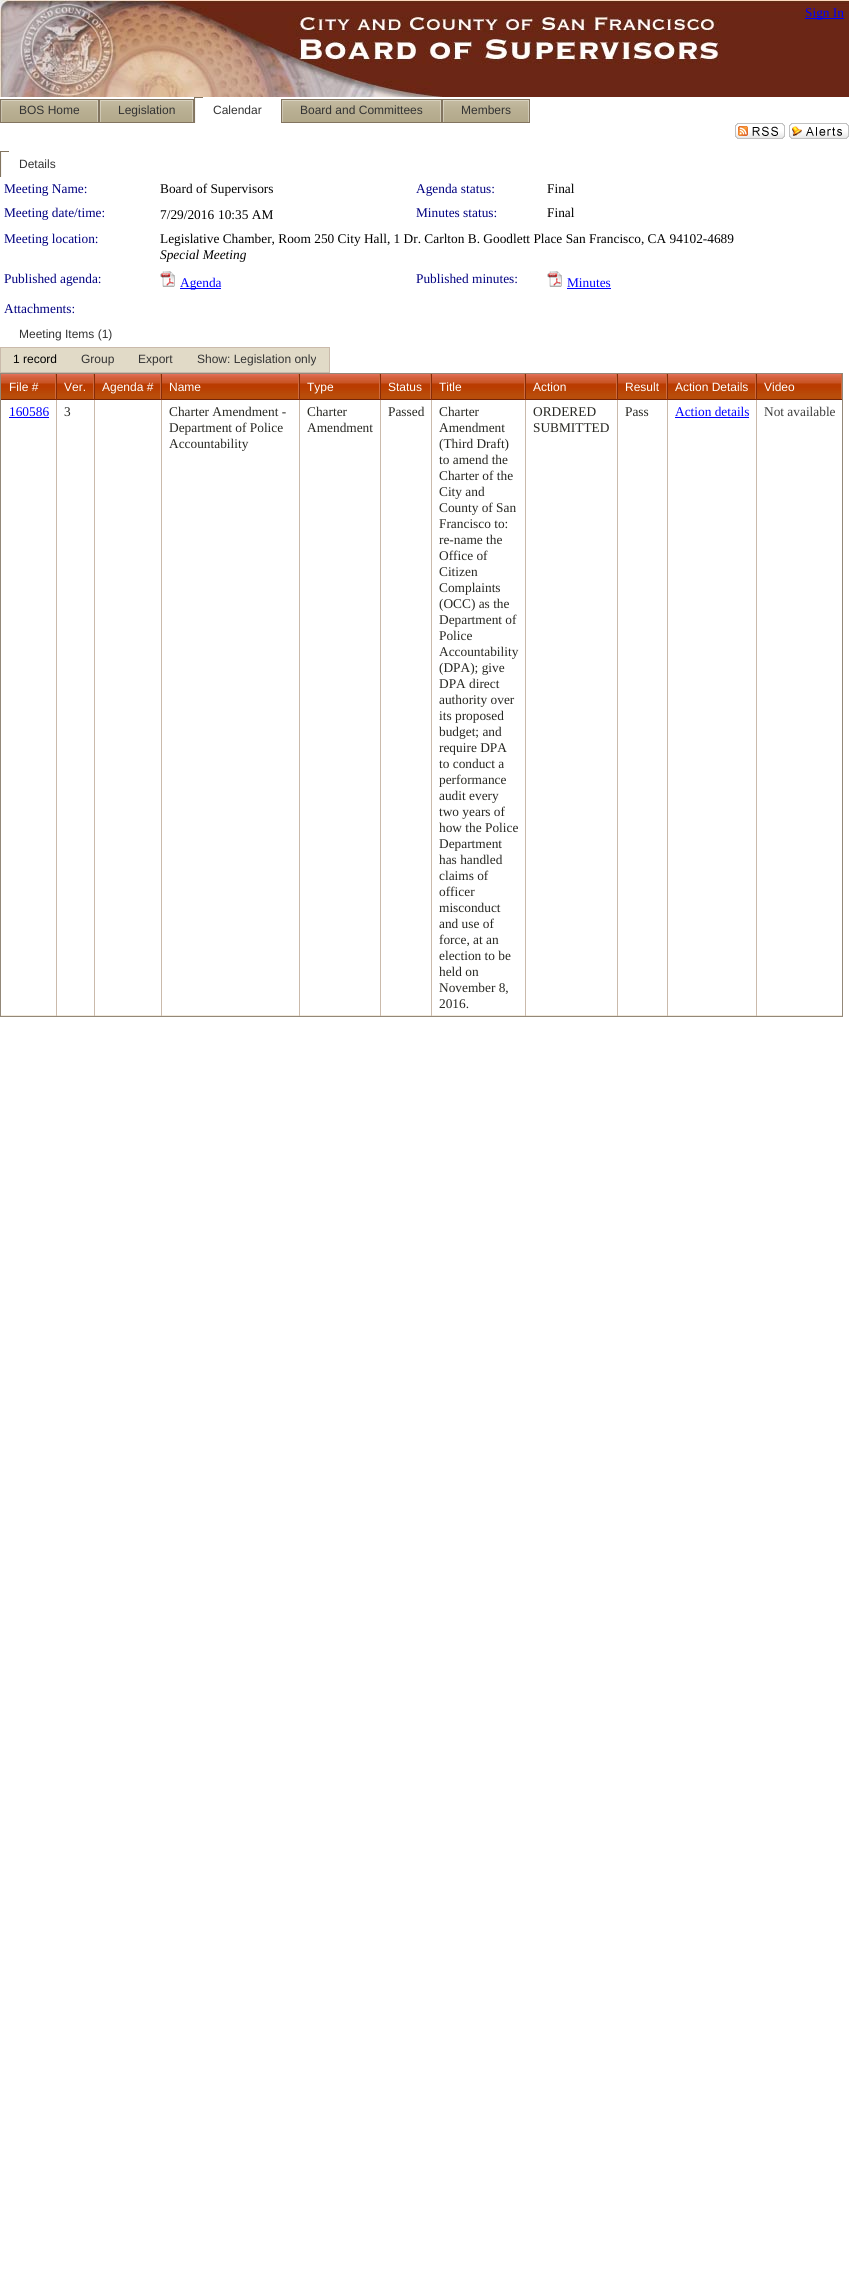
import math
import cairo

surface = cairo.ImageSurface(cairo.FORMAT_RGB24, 849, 2278)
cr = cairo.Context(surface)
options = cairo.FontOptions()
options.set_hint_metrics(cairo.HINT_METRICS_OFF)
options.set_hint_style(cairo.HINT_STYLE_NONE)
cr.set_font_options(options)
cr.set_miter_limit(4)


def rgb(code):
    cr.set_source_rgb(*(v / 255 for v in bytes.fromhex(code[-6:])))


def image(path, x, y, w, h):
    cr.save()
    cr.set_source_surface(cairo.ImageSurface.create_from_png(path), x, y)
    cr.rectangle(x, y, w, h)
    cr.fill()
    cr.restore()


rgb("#ffffff")
cr.paint()
image("img/1.png", 0, 0, 849, 97)
rgb("#0000ff")
cr.rectangle(805, 18, 39, 1)
cr.fill()
image("img/2.png", 0, 99, 9, 24)
image("img/3.png", 9, 99, 90, 24)
image("img/4.png", 99, 99, 9, 24)
image("img/5.png", 108, 99, 86, 24)
image("img/6.png", 194, 97, 9, 26)
image("img/2.png", 281, 99, 9, 24)
image("img/7.png", 290, 99, 152, 24)
image("img/4.png", 442, 99, 9, 24)
image("img/8.png", 451, 99, 79, 24)
image("img/9.png", 735, 123, 50, 16)
image("img/10.png", 789, 123, 60, 16)
image("img/6.png", 0, 151, 9, 26)
image("img/11.png", 160, 271, 15, 16)
cr.rectangle(180, 288, 41, 1)
cr.fill()
image("img/11.png", 547, 271, 15, 16)
cr.rectangle(567, 288, 44, 1)
cr.fill()
rgb("#e1dac7")
cr.rectangle(0.5, 347.5, 329, 25)
cr.fill_preserve()
rgb("#cabaab")
cr.set_line_width(1)
cr.stroke()
cr.rectangle(0.5, 373.5, 842, 643)
rgb("#938879")
cr.stroke()
rgb("#b94d0a")
cr.rectangle(1, 396, 54, 3)
cr.fill()
image("img/12.png", 1, 374, 54, 22)
for x, y, w, h, color in [
    (55, 374, 1, 26, "#cd6a3f"),
    (1, 399, 55, 1, "#71250a"),
    (57, 396, 36, 3, "#b94d0a"),
]:
    rgb(color)
    cr.rectangle(x, y, w, h)
    cr.fill()
image("img/13.png", 57, 374, 36, 22)
for x, y, w, h, color in [
    (93, 374, 1, 26, "#cd6a3f"),
    (56, 399, 38, 1, "#71250a"),
    (56, 374, 1, 26, "#872b07"),
    (95, 396, 65, 3, "#b94d0a"),
]:
    rgb(color)
    cr.rectangle(x, y, w, h)
    cr.fill()
image("img/14.png", 95, 374, 65, 22)
for x, y, w, h, color in [
    (160, 374, 1, 26, "#cd6a3f"),
    (94, 399, 67, 1, "#71250a"),
    (94, 374, 1, 26, "#872b07"),
    (162, 396, 136, 3, "#b94d0a"),
]:
    rgb(color)
    cr.rectangle(x, y, w, h)
    cr.fill()
image("img/15.png", 162, 374, 136, 22)
for x, y, w, h, color in [
    (298, 374, 1, 26, "#cd6a3f"),
    (161, 399, 138, 1, "#71250a"),
    (161, 374, 1, 26, "#872b07"),
    (300, 396, 79, 3, "#b94d0a"),
]:
    rgb(color)
    cr.rectangle(x, y, w, h)
    cr.fill()
image("img/16.png", 300, 374, 79, 22)
for x, y, w, h, color in [
    (379, 374, 1, 26, "#cd6a3f"),
    (299, 399, 81, 1, "#71250a"),
    (299, 374, 1, 26, "#872b07"),
    (381, 396, 49, 3, "#b94d0a"),
]:
    rgb(color)
    cr.rectangle(x, y, w, h)
    cr.fill()
image("img/17.png", 381, 374, 49, 22)
for x, y, w, h, color in [
    (430, 374, 1, 26, "#cd6a3f"),
    (380, 399, 51, 1, "#71250a"),
    (380, 374, 1, 26, "#872b07"),
    (432, 396, 92, 3, "#b94d0a"),
]:
    rgb(color)
    cr.rectangle(x, y, w, h)
    cr.fill()
image("img/18.png", 432, 374, 92, 22)
for x, y, w, h, color in [
    (524, 374, 1, 26, "#cd6a3f"),
    (431, 399, 94, 1, "#71250a"),
    (431, 374, 1, 26, "#872b07"),
    (526, 396, 90, 3, "#b94d0a"),
]:
    rgb(color)
    cr.rectangle(x, y, w, h)
    cr.fill()
image("img/19.png", 526, 374, 90, 22)
for x, y, w, h, color in [
    (616, 374, 1, 26, "#cd6a3f"),
    (525, 399, 92, 1, "#71250a"),
    (525, 374, 1, 26, "#872b07"),
    (618, 396, 48, 3, "#b94d0a"),
]:
    rgb(color)
    cr.rectangle(x, y, w, h)
    cr.fill()
image("img/20.png", 618, 374, 48, 22)
for x, y, w, h, color in [
    (666, 374, 1, 26, "#cd6a3f"),
    (617, 399, 50, 1, "#71250a"),
    (617, 374, 1, 26, "#872b07"),
    (668, 396, 87, 3, "#b94d0a"),
]:
    rgb(color)
    cr.rectangle(x, y, w, h)
    cr.fill()
image("img/21.png", 668, 374, 87, 22)
for x, y, w, h, color in [
    (755, 374, 1, 26, "#cd6a3f"),
    (667, 399, 89, 1, "#71250a"),
    (667, 374, 1, 26, "#872b07"),
    (757, 396, 84, 3, "#b94d0a"),
]:
    rgb(color)
    cr.rectangle(x, y, w, h)
    cr.fill()
image("img/22.png", 757, 374, 84, 22)
for x, y, w, h, color in [
    (841, 374, 1, 26, "#cd6a3f"),
    (756, 399, 86, 1, "#71250a"),
    (756, 374, 1, 26, "#872b07"),
    (1, 1015, 841, 1, "#f1e9dc"),
    (9, 417, 40, 1, "#0000ff"),
    (56, 400, 1, 616, "#cabaab"),
    (94, 400, 1, 616, "#cabaab"),
    (161, 400, 1, 616, "#cabaab"),
    (299, 400, 1, 616, "#cabaab"),
    (380, 400, 1, 616, "#cabaab"),
    (431, 400, 1, 616, "#cabaab"),
    (525, 400, 1, 616, "#cabaab"),
    (617, 400, 1, 616, "#cabaab"),
    (667, 400, 1, 616, "#cabaab"),
    (675, 417, 74, 1, "#0000ff"),
    (756, 400, 1, 616, "#cabaab"),
]:
    rgb(color)
    cr.rectangle(x, y, w, h)
    cr.fill()
cr.select_font_face("Liberation Serif")
cr.set_font_size(13.35)
rgb("#0000ff")
cr.move_to(805, 17)
cr.show_text("Sign In")
cr.select_font_face("Liberation Sans")
cr.set_font_size(12)
rgb("#333333")
for x, y, s in [
    (19, 114, "BOS Home"),
    (118, 114, "Legislation"),
    (213, 114, "Calendar"),
    (300, 114, "Board and Committees"),
    (461, 114, "Members"),
    (19, 168, "Details"),
]:
    cr.move_to(x, y)
    cr.show_text(s)
cr.select_font_face("Liberation Serif")
cr.set_font_size(13.35)
rgb("#000080")
cr.move_to(4, 193)
cr.show_text("Meeting Name:")
rgb("#000000")
cr.move_to(160, 193)
cr.show_text("Board of Supervisors")
rgb("#000080")
cr.move_to(416, 193)
cr.show_text("Agenda status:")
rgb("#000000")
cr.move_to(547, 193)
cr.show_text("Final")
rgb("#000080")
cr.move_to(4, 217)
cr.show_text("Meeting date/time:")
rgb("#000000")
cr.move_to(160, 219)
cr.show_text("7/29/2016")
cr.move_to(218, 219)
cr.show_text("10:35 AM")
rgb("#000080")
cr.move_to(416, 217)
cr.show_text("Minutes status:")
rgb("#000000")
cr.move_to(547, 217)
cr.show_text("Final")
rgb("#000080")
cr.move_to(4, 243)
cr.show_text("Meeting location:")
rgb("#000000")
cr.move_to(160, 243)
cr.show_text("Legislative Chamber, Room 250 City Hall, 1 Dr. Carlton B. Goodlett Place San Francisco, CA 94102-4689")
cr.select_font_face("Liberation Serif", cairo.FONT_SLANT_ITALIC)
cr.move_to(160, 259)
cr.show_text("Special Meeting")
cr.select_font_face("Liberation Serif")
rgb("#000080")
cr.move_to(4, 283)
cr.show_text("Published agenda:")
rgb("#0000ff")
cr.move_to(180, 287)
cr.show_text("Agenda")
rgb("#000080")
cr.move_to(416, 283)
cr.show_text("Published minutes:")
rgb("#0000ff")
cr.move_to(567, 287)
cr.show_text("Minutes")
rgb("#000080")
cr.move_to(4, 313)
cr.show_text("Attachments:")
cr.select_font_face("Liberation Sans")
cr.set_font_size(12)
rgb("#333333")
cr.move_to(19, 338)
cr.show_text("Meeting Items (1)")
rgb("#000000")
cr.move_to(13, 363)
cr.show_text("1 record")
rgb("#333333")
for x, y, s in [
    (81, 363, "Group"),
    (138, 363, "Export"),
    (197, 363, "Show: Legislation only"),
]:
    cr.move_to(x, y)
    cr.show_text(s)
rgb("#ffffff")
for x, y, s in [
    (9, 391, "File #"),
    (64, 391, "Ver."),
    (102, 391, "Agenda #"),
    (169, 391, "Name"),
    (307, 391, "Type"),
    (388, 391, "Status"),
    (439, 391, "Title"),
    (533, 391, "Action"),
    (625, 391, "Result"),
    (675, 391, "Action Details"),
    (764, 391, "Video"),
]:
    cr.move_to(x, y)
    cr.show_text(s)
cr.select_font_face("Liberation Serif")
cr.set_font_size(13.35)
rgb("#0000ff")
cr.move_to(9, 416)
cr.show_text("160586")
rgb("#272722")
for x, y, s in [
    (64, 416, "3"),
    (169, 416, "Charter Amendment -"),
    (169, 432, "Department of Police"),
    (169, 448, "Accountability"),
    (307, 416, "Charter"),
    (307, 432, "Amendment"),
    (388, 416, "Passed"),
    (439, 416, "Charter"),
    (439, 432, "Amendment"),
    (439, 448, "(Third Draft)"),
    (439, 464, "to amend the"),
    (439, 480, "Charter of the"),
    (439, 496, "City and"),
    (439, 512, "County of San"),
    (439, 528, "Francisco to:"),
    (439, 544, "re-name the"),
    (439, 560, "Office of"),
    (439, 576, "Citizen"),
    (439, 592, "Complaints"),
    (439, 608, "(OCC) as the"),
    (439, 624, "Department of"),
    (439, 640, "Police"),
    (439, 656, "Accountability"),
    (439, 672, "(DPA); give"),
    (439, 688, "DPA direct"),
    (439, 704, "authority over"),
    (439, 720, "its proposed"),
    (439, 736, "budget; and"),
    (439, 752, "require DPA"),
    (439, 768, "to conduct a"),
    (439, 784, "performance"),
    (439, 800, "audit every"),
    (439, 816, "two years of"),
    (439, 832, "how the Police"),
    (439, 848, "Department"),
    (439, 864, "has handled"),
    (439, 880, "claims of"),
    (439, 896, "officer"),
    (439, 912, "misconduct"),
    (439, 928, "and use of"),
    (439, 944, "force, at an"),
    (439, 960, "election to be"),
    (439, 976, "held on"),
    (439, 992, "November 8,"),
    (439, 1008, "2016."),
    (533, 416, "ORDERED"),
    (533, 432, "SUBMITTED"),
    (625, 416, "Pass"),
]:
    cr.move_to(x, y)
    cr.show_text(s)
rgb("#0000ff")
cr.move_to(675, 416)
cr.show_text("Action details")
rgb("#3d3d3d")
cr.move_to(764, 416)
cr.show_text("Not available")
surface.write_to_png("page.png")
